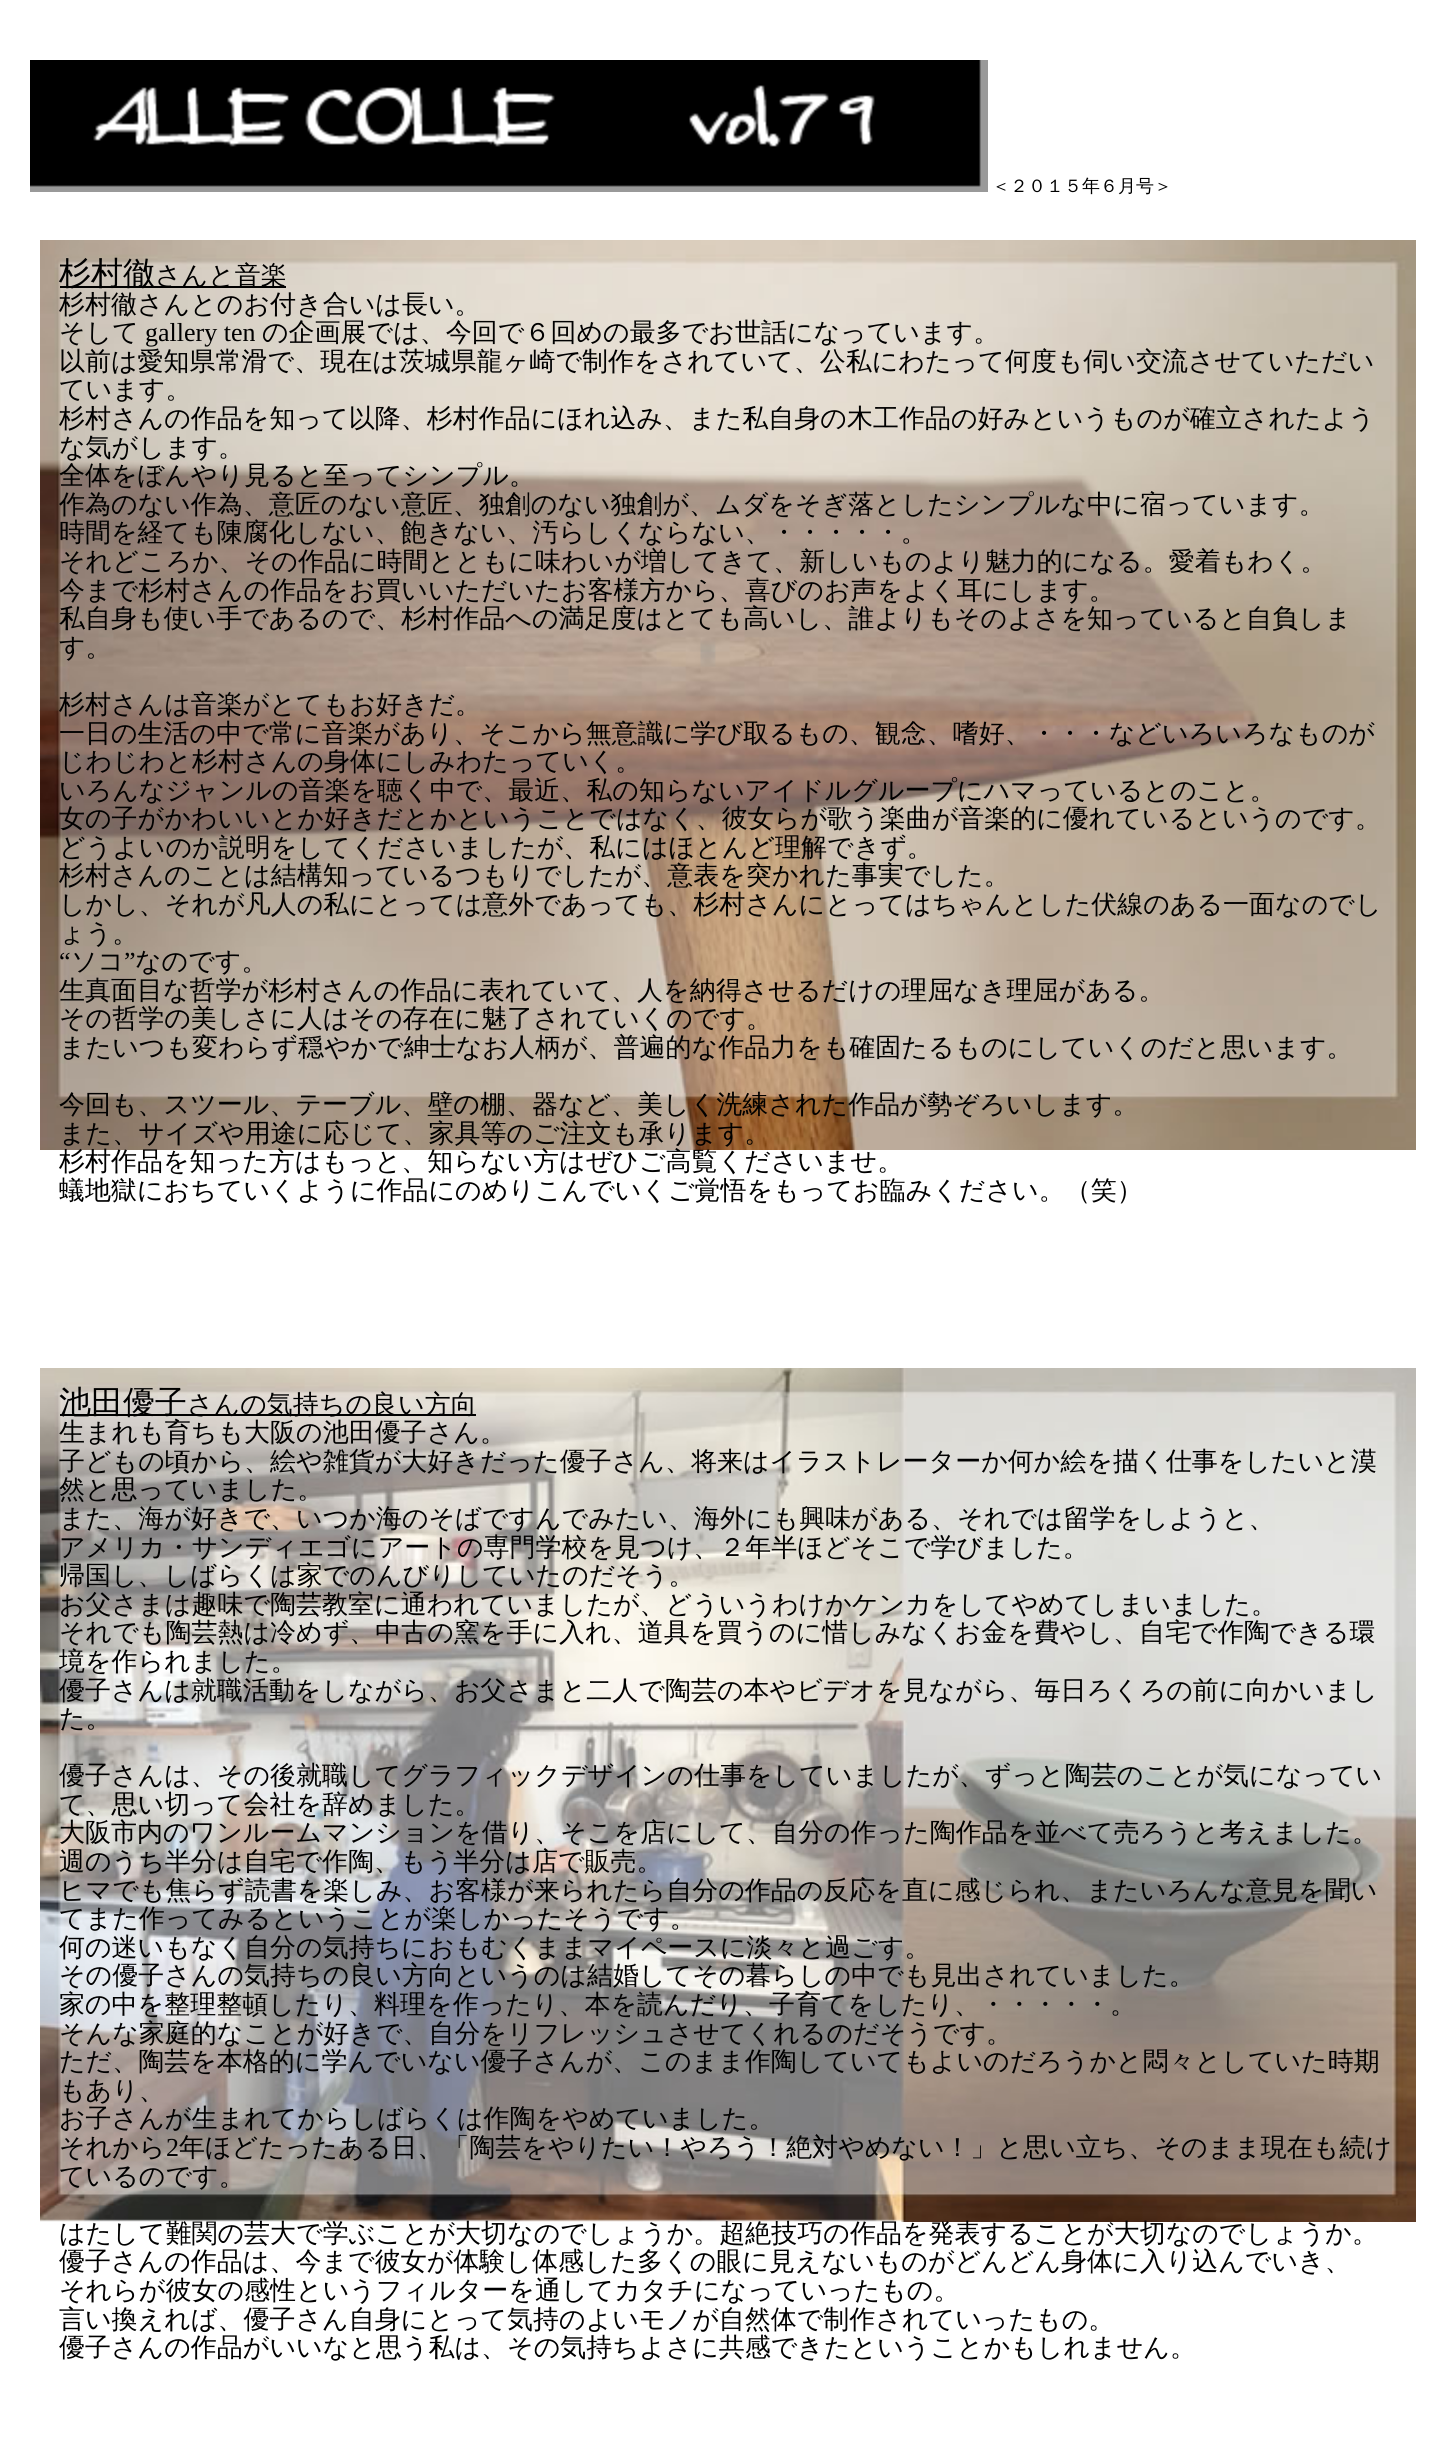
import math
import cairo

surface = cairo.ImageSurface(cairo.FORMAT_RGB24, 1455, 2462)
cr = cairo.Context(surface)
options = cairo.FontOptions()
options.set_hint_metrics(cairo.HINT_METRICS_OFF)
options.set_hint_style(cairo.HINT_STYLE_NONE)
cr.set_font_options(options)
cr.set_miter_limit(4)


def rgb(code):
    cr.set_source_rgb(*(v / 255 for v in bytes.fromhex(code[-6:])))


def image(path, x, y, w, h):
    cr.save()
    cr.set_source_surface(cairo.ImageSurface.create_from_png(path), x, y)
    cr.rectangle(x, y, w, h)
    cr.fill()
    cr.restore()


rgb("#ffffff")
cr.paint()
image("img/1.png", 30, 60, 958, 132)
image("img/2.png", 40, 240, 1376, 910)
rgb("#000000")
cr.rectangle(60, 286, 226, 2)
cr.fill()
image("img/3.png", 40, 1368, 1376, 854)
cr.rectangle(60, 1414, 416, 2)
cr.fill()
cr.select_font_face("WenQuanYi Zen Hei Medium")
cr.set_font_size(18)
cr.move_to(992, 192)
cr.show_text("＜２０１５年６月号＞")
cr.set_font_size(32)
cr.move_to(59, 284)
cr.show_text("杉村徹")
cr.set_font_size(26)
for x, y, s in [
    (155, 284, "さんと音楽"),
    (59, 313, "杉村徹さんとのお付き合いは長い。"),
    (59, 341, "そして"),
]:
    cr.move_to(x, y)
    cr.show_text(s)
cr.select_font_face("Liberation Serif")
cr.move_to(145, 341)
cr.show_text("gallery ten")
cr.select_font_face("WenQuanYi Zen Hei Medium")
for x, y, s in [
    (262, 341, "の企画展では、今回で６回めの最多でお世話になっています。"),
    (59, 370, "以前は愛知県常滑で、現在は茨城県龍ヶ崎で制作をされていて、公私にわたって何度も伺い交流させていただい"),
    (59, 398, "ています。"),
    (59, 427, "杉村さんの作品を知って以降、杉村作品にほれ込み、また私自身の木工作品の好みというものが確立されたよう"),
    (59, 456, "な気がします。"),
    (59, 484, "全体をぼんやり見ると至ってシンプル。"),
    (59, 513, "作為のない作為、意匠のない意匠、独創のない独創が、ムダをそぎ落としたシンプルな中に宿っています。"),
    (59, 541, "時間を経ても陳腐化しない、飽きない、汚らしくならない、・・・・・。"),
    (59, 570, "それどころか、その作品に時間とともに味わいが増してきて、新しいものより魅力的になる。愛着もわく。"),
    (59, 599, "今まで杉村さんの作品をお買いいただいたお客様方から、喜びのお声をよく耳にします。"),
    (59, 627, "私自身も使い手であるので、杉村作品への満足度はとても高いし、誰よりもそのよさを知っていると自負しま"),
    (59, 656, "す。"),
    (59, 713, "杉村さんは音楽がとてもお好きだ。"),
    (59, 742, "一日の生活の中で常に音楽があり、そこから無意識に学び取るもの、観念、嗜好、・・・などいろいろなものが"),
    (59, 770, "じわじわと杉村さんの身体にしみわたっていく。"),
    (59, 799, "いろんなジャンルの音楽を聴く中で、最近、私の知らないアイドルグループにハマっているとのこと。"),
    (59, 827, "女の子がかわいいとか好きだとかということではなく、彼女らが歌う楽曲が音楽的に優れているというのです。"),
    (59, 856, "どうよいのか説明をしてくださいましたが、私にはほとんど理解できず。"),
    (59, 884, "杉村さんのことは結構知っているつもりでしたが、意表を突かれた事実でした。"),
    (59, 913, "しかし、それが凡人の私にとっては意外であっても、杉村さんにとってはちゃんとした伏線のある一面なのでし"),
    (59, 942, "ょう。"),
]:
    cr.move_to(x, y)
    cr.show_text(s)
cr.select_font_face("Liberation Serif")
cr.move_to(59, 970)
cr.show_text("“")
cr.select_font_face("WenQuanYi Zen Hei Medium")
cr.move_to(71, 970)
cr.show_text("ソコ")
cr.select_font_face("Liberation Serif")
cr.move_to(124, 970)
cr.show_text("”")
cr.select_font_face("WenQuanYi Zen Hei Medium")
for x, y, s in [
    (135, 970, "なのです。"),
    (59, 999, "生真面目な哲学が杉村さんの作品に表れていて、人を納得させるだけの理屈なき理屈がある。"),
    (59, 1027, "その哲学の美しさに人はその存在に魅了されていくのです。"),
    (59, 1056, "またいつも変わらず穏やかで紳士なお人柄が、普遍的な作品力をも確固たるものにしていくのだと思います。"),
    (59, 1113, "今回も、スツール、テーブル、壁の棚、器など、美しく洗練された作品が勢ぞろいします。"),
    (59, 1142, "また、サイズや用途に応じて、家具等のご注文も承ります。"),
    (59, 1170, "杉村作品を知った方はもっと、知らない方はぜひご高覧くださいませ。"),
    (59, 1199, "蟻地獄におちていくように作品にのめりこんでいくご覚悟をもってお臨みください。（笑）"),
]:
    cr.move_to(x, y)
    cr.show_text(s)
cr.set_font_size(32)
cr.move_to(59, 1413)
cr.show_text("池田優子")
cr.set_font_size(26)
for x, y, s in [
    (187, 1413, "さんの気持ちの良い方向"),
    (59, 1441, "生まれも育ちも大阪の池田優子さん。"),
    (59, 1470, "子どもの頃から、絵や雑貨が大好きだった優子さん、将来はイラストレーターか何か絵を描く仕事をしたいと漠"),
    (59, 1498, "然と思っていました。"),
    (59, 1527, "また、海が好きで、いつか海のそばですんでみたい、海外にも興味がある、それでは留学をしようと、"),
    (59, 1556, "アメリカ・サンディエゴにアートの専門学校を見つけ、２年半ほどそこで学びました。"),
    (59, 1584, "帰国し、しばらくは家でのんびりしていたのだそう。"),
    (59, 1613, "お父さまは趣味で陶芸教室に通われていましたが、どういうわけかケンカをしてやめてしまいました。"),
    (59, 1641, "それでも陶芸熱は冷めず、中古の窯を手に入れ、道具を買うのに惜しみなくお金を費やし、自宅で作陶できる環"),
    (59, 1670, "境を作られました。"),
    (59, 1699, "優子さんは就職活動をしながら、お父さまと二人で陶芸の本やビデオを見ながら、毎日ろくろの前に向かいまし"),
    (59, 1727, "た。"),
    (59, 1784, "優子さんは、その後就職してグラフィックデザインの仕事をしていましたが、ずっと陶芸のことが気になってい"),
    (59, 1813, "て、思い切って会社を辞めました。"),
    (59, 1841, "大阪市内のワンルームマンションを借り、そこを店にして、自分の作った陶作品を並べて売ろうと考えました。"),
    (59, 1870, "週のうち半分は自宅で作陶、もう半分は店で販売。"),
    (59, 1899, "ヒマでも焦らず読書を楽しみ、お客様が来られたら自分の作品の反応を直に感じられ、またいろんな意見を聞い"),
    (59, 1927, "てまた作ってみるということが楽しかったそうです。"),
    (59, 1956, "何の迷いもなく自分の気持ちにおもむくままマイペースに淡々と過ごす。"),
    (59, 1984, "その優子さんの気持ちの良い方向というのは結婚してその暮らしの中でも見出されていました。"),
    (59, 2013, "家の中を整理整頓したり、料理を作ったり、本を読んだり、子育てをしたり、・・・・・。"),
    (59, 2042, "そんな家庭的なことが好きで、自分をリフレッシュさせてくれるのだそうです。"),
    (59, 2070, "ただ、陶芸を本格的に学んでいない優子さんが、このまま作陶していてもよいのだろうかと悶々としていた時期"),
    (59, 2099, "もあり、"),
    (59, 2127, "お子さんが生まれてからしばらくは作陶をやめていました。"),
    (59, 2156, "それから"),
]:
    cr.move_to(x, y)
    cr.show_text(s)
cr.select_font_face("Liberation Serif")
cr.move_to(166, 2156)
cr.show_text("2")
cr.select_font_face("WenQuanYi Zen Hei Medium")
for x, y, s in [
    (179, 2156, "年ほどたったある日、「陶芸をやりたい！やろう！絶対やめない！」と思い立ち、そのまま現在も続け"),
    (59, 2185, "ているのです。"),
    (59, 2242, "はたして難関の芸大で学ぶことが大切なのでしょうか。超絶技巧の作品を発表することが大切なのでしょうか。"),
    (59, 2270, "優子さんの作品は、今まで彼女が体験し体感した多くの眼に見えないものがどんどん身体に入り込んでいき、"),
    (59, 2299, "それらが彼女の感性というフィルターを通してカタチになっていったもの。"),
    (59, 2328, "言い換えれば、優子さん自身にとって気持のよいモノが自然体で制作されていったもの。"),
    (59, 2356, "優子さんの作品がいいなと思う私は、その気持ちよさに共感できたということかもしれません。"),
]:
    cr.move_to(x, y)
    cr.show_text(s)
surface.write_to_png("page.png")
